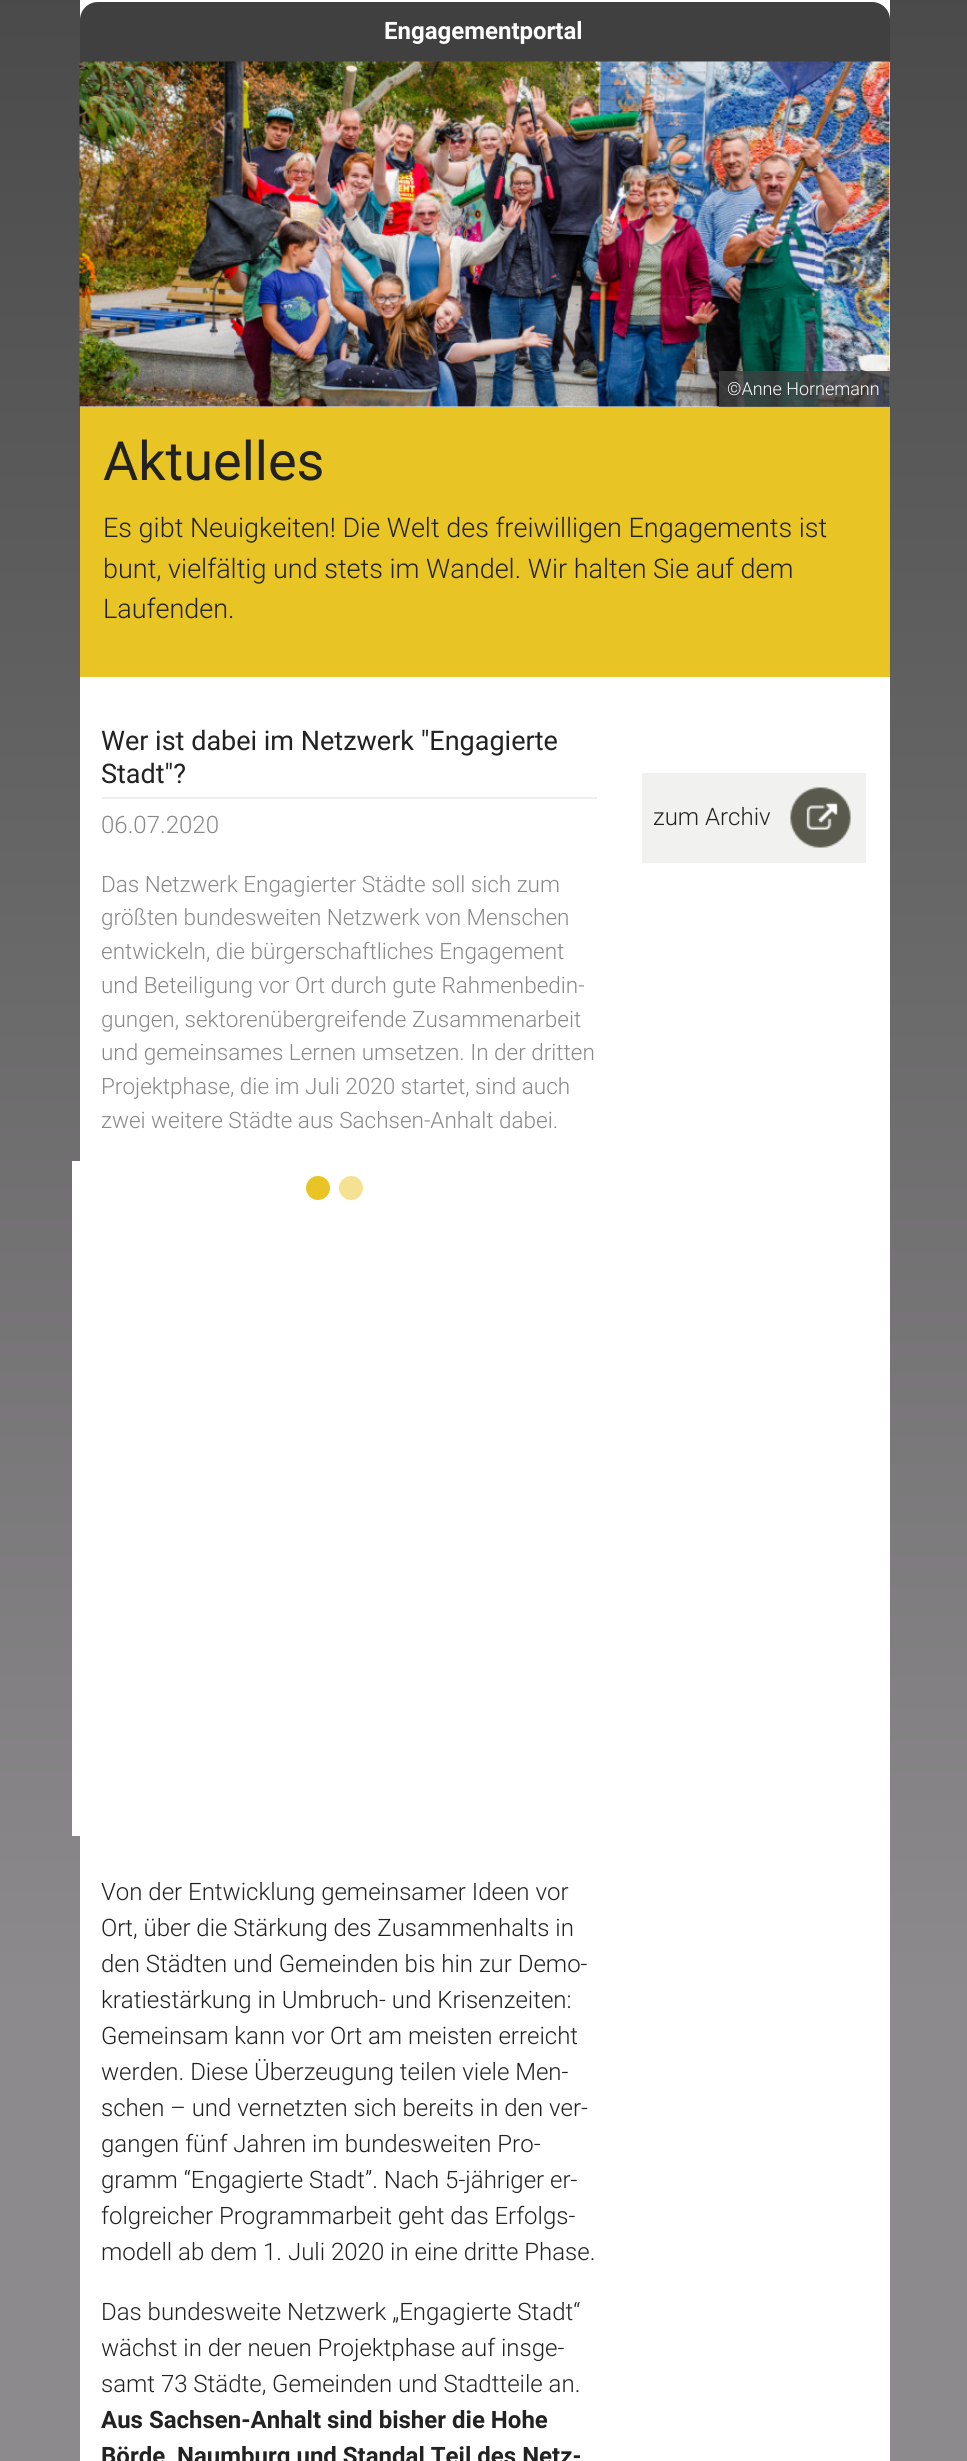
import math
import cairo

surface = cairo.ImageSurface(cairo.FORMAT_RGB24, 967, 2461)
cr = cairo.Context(surface)
options = cairo.FontOptions()
options.set_hint_metrics(cairo.HINT_METRICS_OFF)
options.set_hint_style(cairo.HINT_STYLE_NONE)
cr.set_font_options(options)
cr.set_miter_limit(4)


def rgb(code):
    cr.set_source_rgb(*(v / 255 for v in bytes.fromhex(code[-6:])))


def image(path, x, y, w, h):
    cr.save()
    cr.set_source_surface(cairo.ImageSurface.create_from_png(path), x, y)
    cr.rectangle(x, y, w, h)
    cr.fill()
    cr.restore()


rgb("#ffffff")
cr.paint()
gradient = cairo.LinearGradient(484, -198, 484, 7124)
gradient.add_color_stop_rgba(0, 0.267, 0.267, 0.267, 1)
gradient.add_color_stop_rgba(0.3, 0.549, 0.541, 0.549, 1)
cr.set_source(gradient)
cr.rectangle(0, 0, 967, 2461)
cr.fill()
rgb("#ffffff")
cr.rectangle(80, 0, 810, 407)
cr.fill()
rgb("#404040")
cr.new_path()
cr.move_to(98, 2)
cr.line_to(872, 2)
cr.curve_to(882, 2, 890, 10, 890, 20)
cr.line_to(890, 62)
cr.line_to(80, 62)
cr.line_to(80, 20)
cr.curve_to(80, 10, 88, 2, 98, 2)
cr.close_path()
cr.fill()
image("img/1.png", 79, 61, 811, 346)
cr.set_source_rgba(0.251, 0.251, 0.251, 0.8)
cr.rectangle(719, 371, 171, 36)
cr.fill()
rgb("#e8c425")
cr.rectangle(80, 407, 810, 270)
cr.fill()
rgb("#ffffff")
cr.rectangle(80, 677, 810, 1784)
cr.fill()
rgb("#eeeeee")
cr.rectangle(102, 797, 495, 2)
cr.fill()
rgb("#ffffff")
cr.rectangle(72, 1161, 8, 675)
cr.fill()
rgb("#e8c425")
cr.arc(318, 1188, 12, 0, 2 * math.pi)
cr.fill()
rgb("#f4e292")
cr.arc(351, 1188, 12, 0, 2 * math.pi)
cr.fill()
rgb("#f1f1f0")
cr.rectangle(642, 773, 224, 90)
cr.fill()
image("img/2.png", 790, 787, 61, 61)
cr.select_font_face("Roboto", cairo.FONT_SLANT_NORMAL, cairo.FONT_WEIGHT_BOLD)
cr.set_font_size(24)
rgb("#ffffff")
cr.move_to(384, 39)
cr.show_text("Engagementportal")
cr.select_font_face("Roboto Light")
cr.set_font_size(18)
cr.move_to(727, 395)
cr.show_text("©Anne Hornemann")
cr.select_font_face("Roboto")
cr.set_font_size(54)
rgb("#222222")
cr.move_to(103, 480)
cr.show_text("Aktuelles")
cr.select_font_face("Roboto Light")
cr.set_font_size(27)
for x, y, s in [
    (103, 537, "Es gibt Neuigkeiten! Die Welt des freiwilligen Engagements ist"),
    (103, 578, "bunt, vielfältig und stets im Wandel. Wir halten Sie auf dem"),
    (103, 618, "Laufenden."),
]:
    cr.move_to(x, y)
    cr.show_text(s)
cr.select_font_face("Roboto")
cr.move_to(101, 750)
cr.show_text("Wer ist dabei im Netzwerk \"Engagierte")
cr.move_to(101, 783)
cr.show_text("Stadt\"?")
cr.select_font_face("Roboto Light")
cr.set_font_size(24)
rgb("#888888")
cr.move_to(101, 833)
cr.show_text("06.07.2020")
cr.set_font_size(22.5)
for x, y, s in [
    (101, 892, "Das Netzwerk Engagierter Städte soll sich zum"),
    (101, 925, "größten bundesweiten Netzwerk von Menschen"),
    (101, 959, "entwickeln, die bürgerschaftliches Engagement"),
    (101, 993, "und Beteiligung vor Ort durch gute Rahmenbedin-"),
    (101, 1027, "gungen, sektorenübergreifende Zusammenarbeit"),
    (101, 1060, "und gemeinsames Lernen umsetzen. In der dritten"),
    (101, 1094, "Projektphase, die im Juli 2020 startet, sind auch"),
    (101, 1128, "zwei weitere Städte aus Sachsen-Anhalt dabei."),
]:
    cr.move_to(x, y)
    cr.show_text(s)
cr.set_font_size(24)
rgb("#222222")
for x, y, s in [
    (101, 1900, "Von der Entwicklung gemeinsamer Ideen vor"),
    (101, 1936, "Ort, über die Stärkung des Zusammenhalts in"),
    (101, 1972, "den Städten und Gemeinden bis hin zur Demo-"),
    (101, 2008, "kratiestärkung in Umbruch- und Krisenzeiten:"),
    (101, 2044, "Gemeinsam kann vor Ort am meisten erreicht"),
    (101, 2080, "werden. Diese Überzeugung teilen viele Men-"),
    (101, 2116, "schen – und vernetzten sich bereits in den ver-"),
    (101, 2152, "gangen fünf Jahren im bundesweiten Pro-"),
    (101, 2188, "gramm “Engagierte Stadt”. Nach 5-jähriger er-"),
    (101, 2224, "folgreicher Programmarbeit geht das Erfolgs-"),
    (101, 2260, "modell ab dem 1. Juli 2020 in eine dritte Phase."),
    (101, 2320, "Das bundesweite Netzwerk „Engagierte Stadt“"),
    (101, 2356, "wächst in der neuen Projektphase auf insge-"),
    (101, 2392, "samt 73 Städte, Gemeinden und Stadtteile an."),
]:
    cr.move_to(x, y)
    cr.show_text(s)
cr.select_font_face("Roboto", cairo.FONT_SLANT_NORMAL, cairo.FONT_WEIGHT_BOLD)
cr.move_to(101, 2428)
cr.show_text("Aus Sachsen-Anhalt sind bisher die Hohe")
cr.move_to(101, 2464)
cr.show_text("Börde, Naumburg und Standal Teil des Netz-")
cr.select_font_face("Roboto Light")
cr.move_to(653, 825)
cr.show_text("zum Archiv")
surface.write_to_png("page.png")
